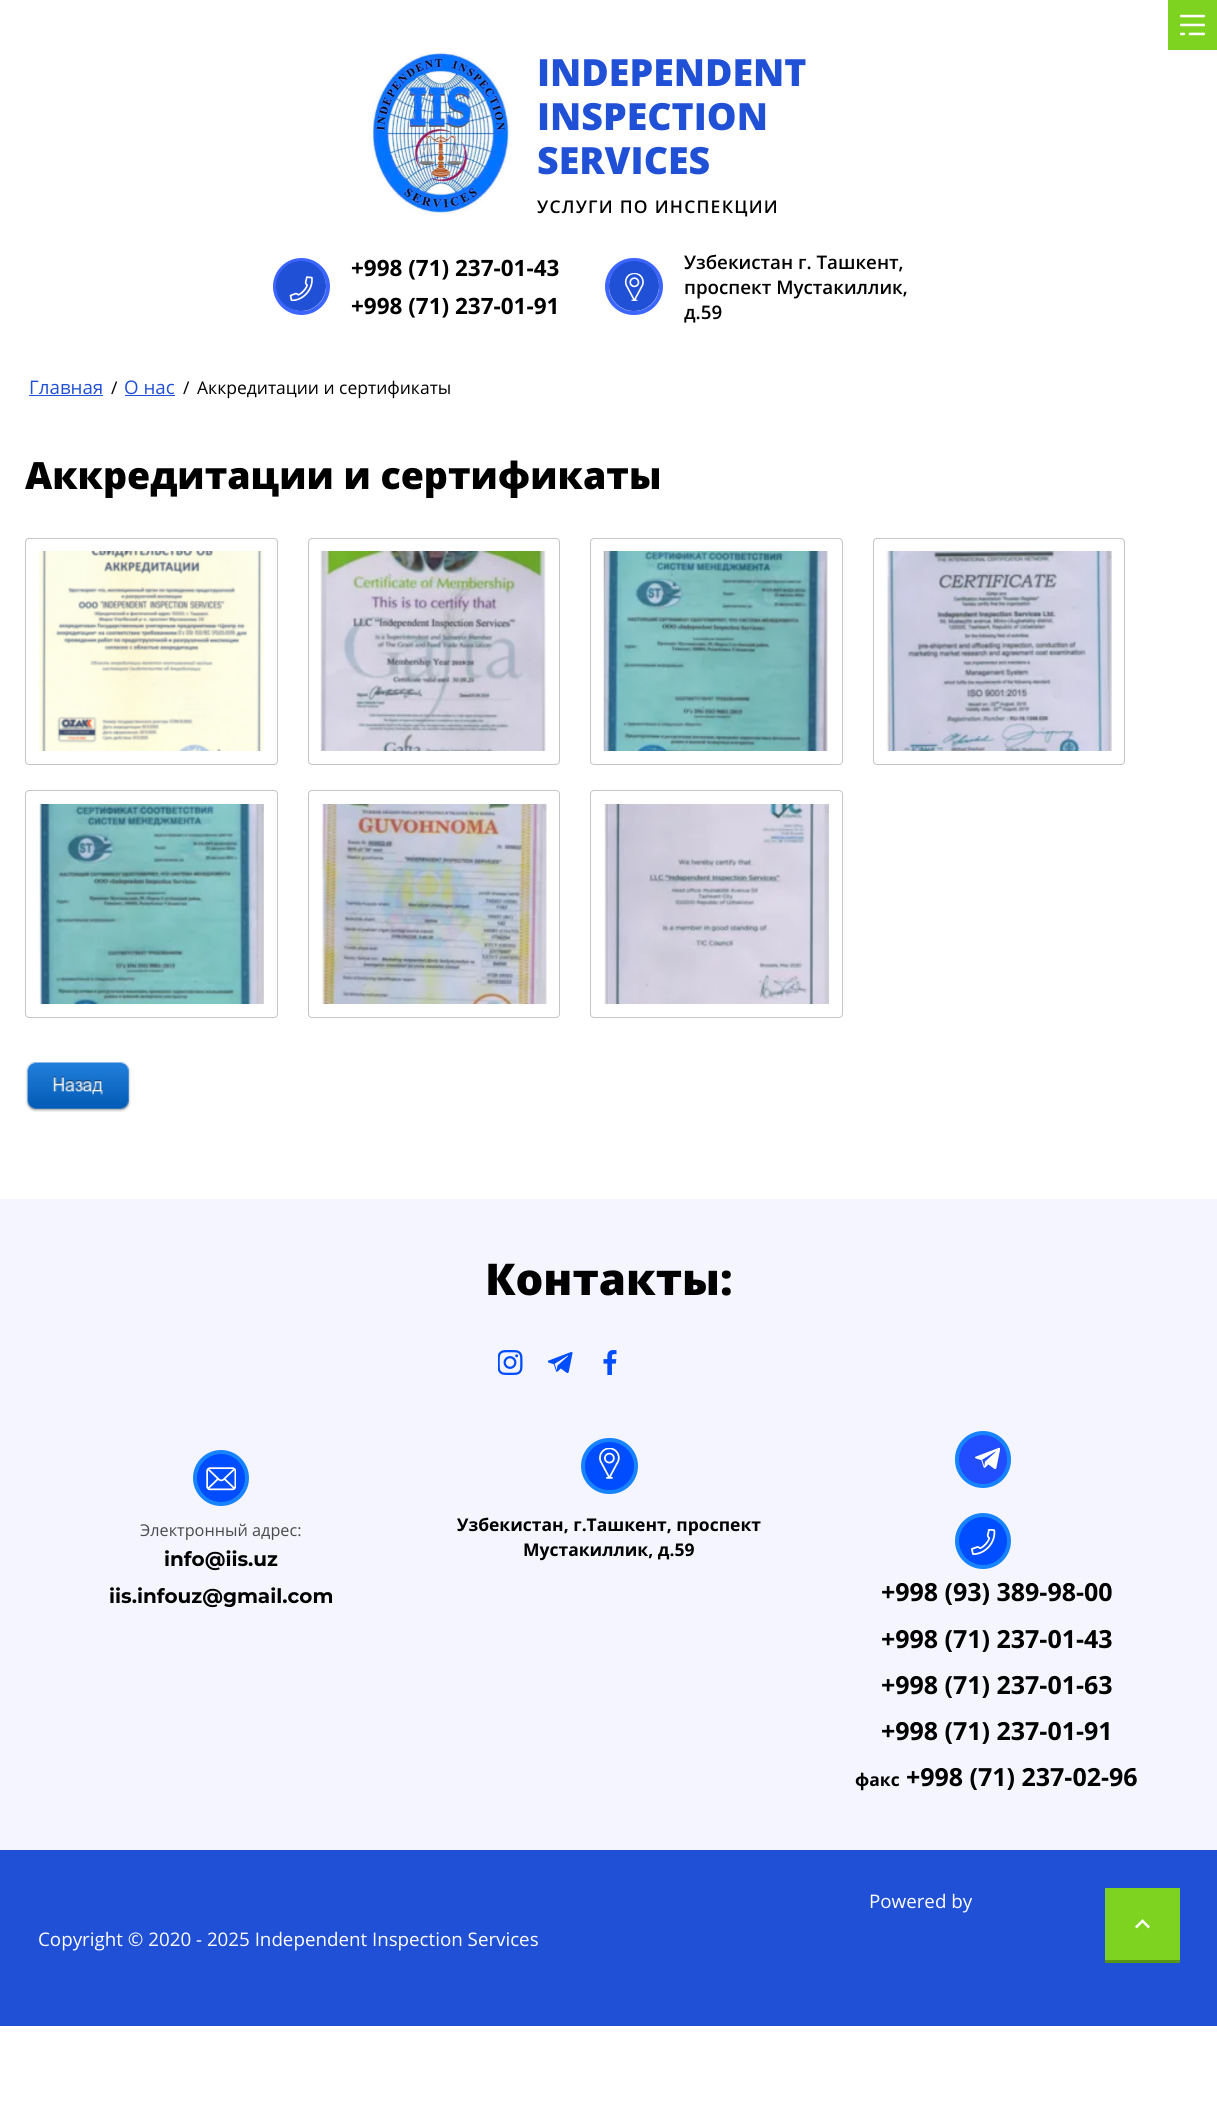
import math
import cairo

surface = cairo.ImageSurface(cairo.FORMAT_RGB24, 1217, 2103)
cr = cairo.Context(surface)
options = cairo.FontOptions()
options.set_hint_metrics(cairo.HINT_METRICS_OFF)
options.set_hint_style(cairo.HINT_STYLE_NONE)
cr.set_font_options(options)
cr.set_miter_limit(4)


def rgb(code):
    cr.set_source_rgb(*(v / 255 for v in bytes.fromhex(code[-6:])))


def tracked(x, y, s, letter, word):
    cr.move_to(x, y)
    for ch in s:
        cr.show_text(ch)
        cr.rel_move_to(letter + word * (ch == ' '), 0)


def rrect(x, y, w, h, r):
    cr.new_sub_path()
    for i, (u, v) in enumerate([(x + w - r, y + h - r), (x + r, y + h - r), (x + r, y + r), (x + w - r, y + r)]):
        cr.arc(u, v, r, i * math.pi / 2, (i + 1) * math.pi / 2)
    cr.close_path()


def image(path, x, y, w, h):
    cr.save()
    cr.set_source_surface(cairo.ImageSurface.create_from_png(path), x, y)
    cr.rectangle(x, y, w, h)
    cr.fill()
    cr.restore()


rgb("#ffffff")
cr.paint()
rgb("#7ed321")
cr.rectangle(1168, 0, 49, 50)
cr.fill()
image("img/1.png", 1180, 14, 25, 22)
image("img/2.png", 372, 52, 138, 163)
cr.arc(301.5, 286.5, 26.5, 0, 2 * math.pi)
rgb("#3c64ff")
cr.set_line_width(4)
cr.stroke()
rgb("#2050d6")
cr.arc(301, 286, 25, 0, 2 * math.pi)
cr.fill()
image("img/3.png", 289, 276, 24, 25)
rrect(607, 260, 54, 53, 26.5)
rgb("#3c64ff")
cr.stroke()
rgb("#2050d6")
cr.arc(634, 286, 25, 0, 2 * math.pi)
cr.fill()
image("img/4.png", 624, 273, 20, 28)
cr.rectangle(29, 395, 74, 1)
cr.fill()
cr.rectangle(125, 395, 50, 1)
cr.fill()
rrect(25.5, 538.5, 252, 226, 3.5)
rgb("#c5c5c5")
cr.set_line_width(1)
cr.stroke()
image("img/5.png", 39, 551, 225, 200)
rrect(308.5, 538.5, 251, 226, 3.5)
cr.stroke()
image("img/6.png", 320, 551, 226, 200)
rrect(590.5, 538.5, 252, 226, 3.5)
cr.stroke()
image("img/7.png", 603, 551, 225, 200)
rrect(873.5, 538.5, 251, 226, 3.5)
cr.stroke()
image("img/8.png", 886, 551, 226, 200)
rrect(25.5, 790.5, 252, 227, 3.5)
cr.stroke()
image("img/9.png", 39, 804, 225, 200)
rrect(308.5, 790.5, 251, 227, 3.5)
cr.stroke()
image("img/10.png", 321, 804, 226, 200)
rrect(590.5, 790.5, 252, 227, 3.5)
cr.stroke()
image("img/11.png", 604, 804, 225, 200)
image("img/12.png", 25, 1062, 106, 50)
rgb("#f5f5ff")
cr.rectangle(0, 1199, 1217, 651)
cr.fill()
image("img/13.png", 498, 1350, 25, 25)
image("img/14.png", 548, 1352, 25, 21)
image("img/15.png", 603, 1350, 14, 25)
rgb("#004cff")
cr.arc(221, 1478, 26, 0, 2 * math.pi)
cr.fill_preserve()
rgb("#1883ff")
cr.set_line_width(4)
cr.stroke()
image("img/16.png", 206, 1467, 30, 24)
rgb("#004cff")
rrect(583, 1440, 53, 52, 26)
cr.fill_preserve()
rgb("#1883ff")
cr.stroke()
image("img/17.png", 599, 1448, 21, 31)
rgb("#214dff")
rrect(957, 1433, 52, 53, 26)
cr.fill_preserve()
rgb("#1883ff")
cr.stroke()
image("img/18.png", 975, 1447, 25, 22)
rgb("#004cff")
cr.arc(983, 1541, 26, 0, 2 * math.pi)
cr.fill_preserve()
rgb("#1883ff")
cr.stroke()
image("img/19.png", 971, 1529, 25, 26)
for x, y, w, h, color in [
    (0, 1850, 1217, 176, "#2050d6"),
    (1105, 1888, 75, 72, "#7ed321"),
    (1105, 1960, 75, 3, "#589417"),
]:
    rgb(color)
    cr.rectangle(x, y, w, h)
    cr.fill()
image("img/20.png", 1135, 1919, 15, 10)
cr.select_font_face("Open Sans ExtraBold")
cr.set_font_size(37.5)
rgb("#2050d6")
for x, y, s in [
    (537, 86, "INDEPENDENT"),
    (537, 130, "INSPECTION"),
    (537, 174, "SERVICES"),
]:
    cr.move_to(x, y)
    cr.show_text(s)
cr.select_font_face("Open Sans SemiBold")
cr.set_font_size(17.5)
rgb("#000000")
tracked(537, 213, "УСЛУГИ ПО ИНСПЕКЦИИ", 1.25, 0)
cr.select_font_face("Open Sans", cairo.FONT_SLANT_NORMAL, cairo.FONT_WEIGHT_BOLD)
cr.set_font_size(22.5)
cr.move_to(351, 276)
cr.show_text("+998 (71) 237-01-43")
cr.move_to(351, 314)
cr.show_text("+998 (71) 237-01-91")
cr.select_font_face("Open Sans SemiBold")
cr.set_font_size(18.75)
for x, y, s in [
    (684, 269, "Узбекистан г. Ташкент,"),
    (684, 294, "проспект Мустакиллик,"),
    (684, 319, "д.59"),
]:
    cr.move_to(x, y)
    cr.show_text(s)
cr.select_font_face("Open Sans")
rgb("#2050d6")
cr.move_to(29, 394)
cr.show_text("Главная")
cr.set_font_size(17.5)
rgb("#000000")
cr.move_to(111, 394)
cr.show_text("/")
cr.set_font_size(18.75)
rgb("#2050d6")
cr.move_to(124, 394)
cr.show_text("О нас")
cr.set_font_size(17.5)
rgb("#000000")
cr.move_to(183, 394)
cr.show_text("/")
cr.move_to(197, 394)
cr.show_text("Аккредитации и сертификаты")
cr.select_font_face("Open Sans ExtraBold")
cr.set_font_size(37.5)
cr.move_to(25, 489)
cr.show_text("Аккредитации и сертификаты")
cr.set_font_size(43.75)
cr.move_to(485, 1295)
cr.show_text("Контакты:")
cr.select_font_face("Open Sans")
cr.set_font_size(16.25)
rgb("#4a4a4a")
cr.move_to(140, 1536)
cr.show_text("Электронный адрес:")
cr.select_font_face("Montserrat", cairo.FONT_SLANT_NORMAL, cairo.FONT_WEIGHT_BOLD)
cr.set_font_size(20)
rgb("#000000")
cr.move_to(164, 1566)
cr.show_text("info@iis.uz")
cr.move_to(109, 1603)
cr.show_text("iis.infouz@gmail.com")
cr.select_font_face("Open Sans", cairo.FONT_SLANT_NORMAL, cairo.FONT_WEIGHT_BOLD)
cr.set_font_size(17.5)
cr.move_to(457, 1531)
cr.show_text("Узбекистан, г.Ташкент, проспект")
cr.move_to(523, 1556)
cr.show_text("Мустакиллик, д.59")
cr.set_font_size(25)
for x, y, s in [
    (881, 1601, "+998 (93) 389-98-00"),
    (881, 1648, "+998 (71) 237-01-43"),
    (881, 1694, "+998 (71) 237-01-63"),
    (881, 1740, "+998 (71) 237-01-91"),
]:
    cr.move_to(x, y)
    cr.show_text(s)
cr.set_font_size(17.5)
cr.move_to(855, 1786)
cr.show_text("факс")
cr.set_font_size(25)
cr.move_to(906, 1786)
cr.show_text("+998 (71) 237-02-96")
cr.select_font_face("Open Sans")
cr.set_font_size(18.75)
rgb("#ffffff")
cr.move_to(869, 1908)
cr.show_text("Powered by")
cr.move_to(38, 1946)
cr.show_text("Copyright © 2020 - 2025 Independent Inspection Services")
surface.write_to_png("page.png")
